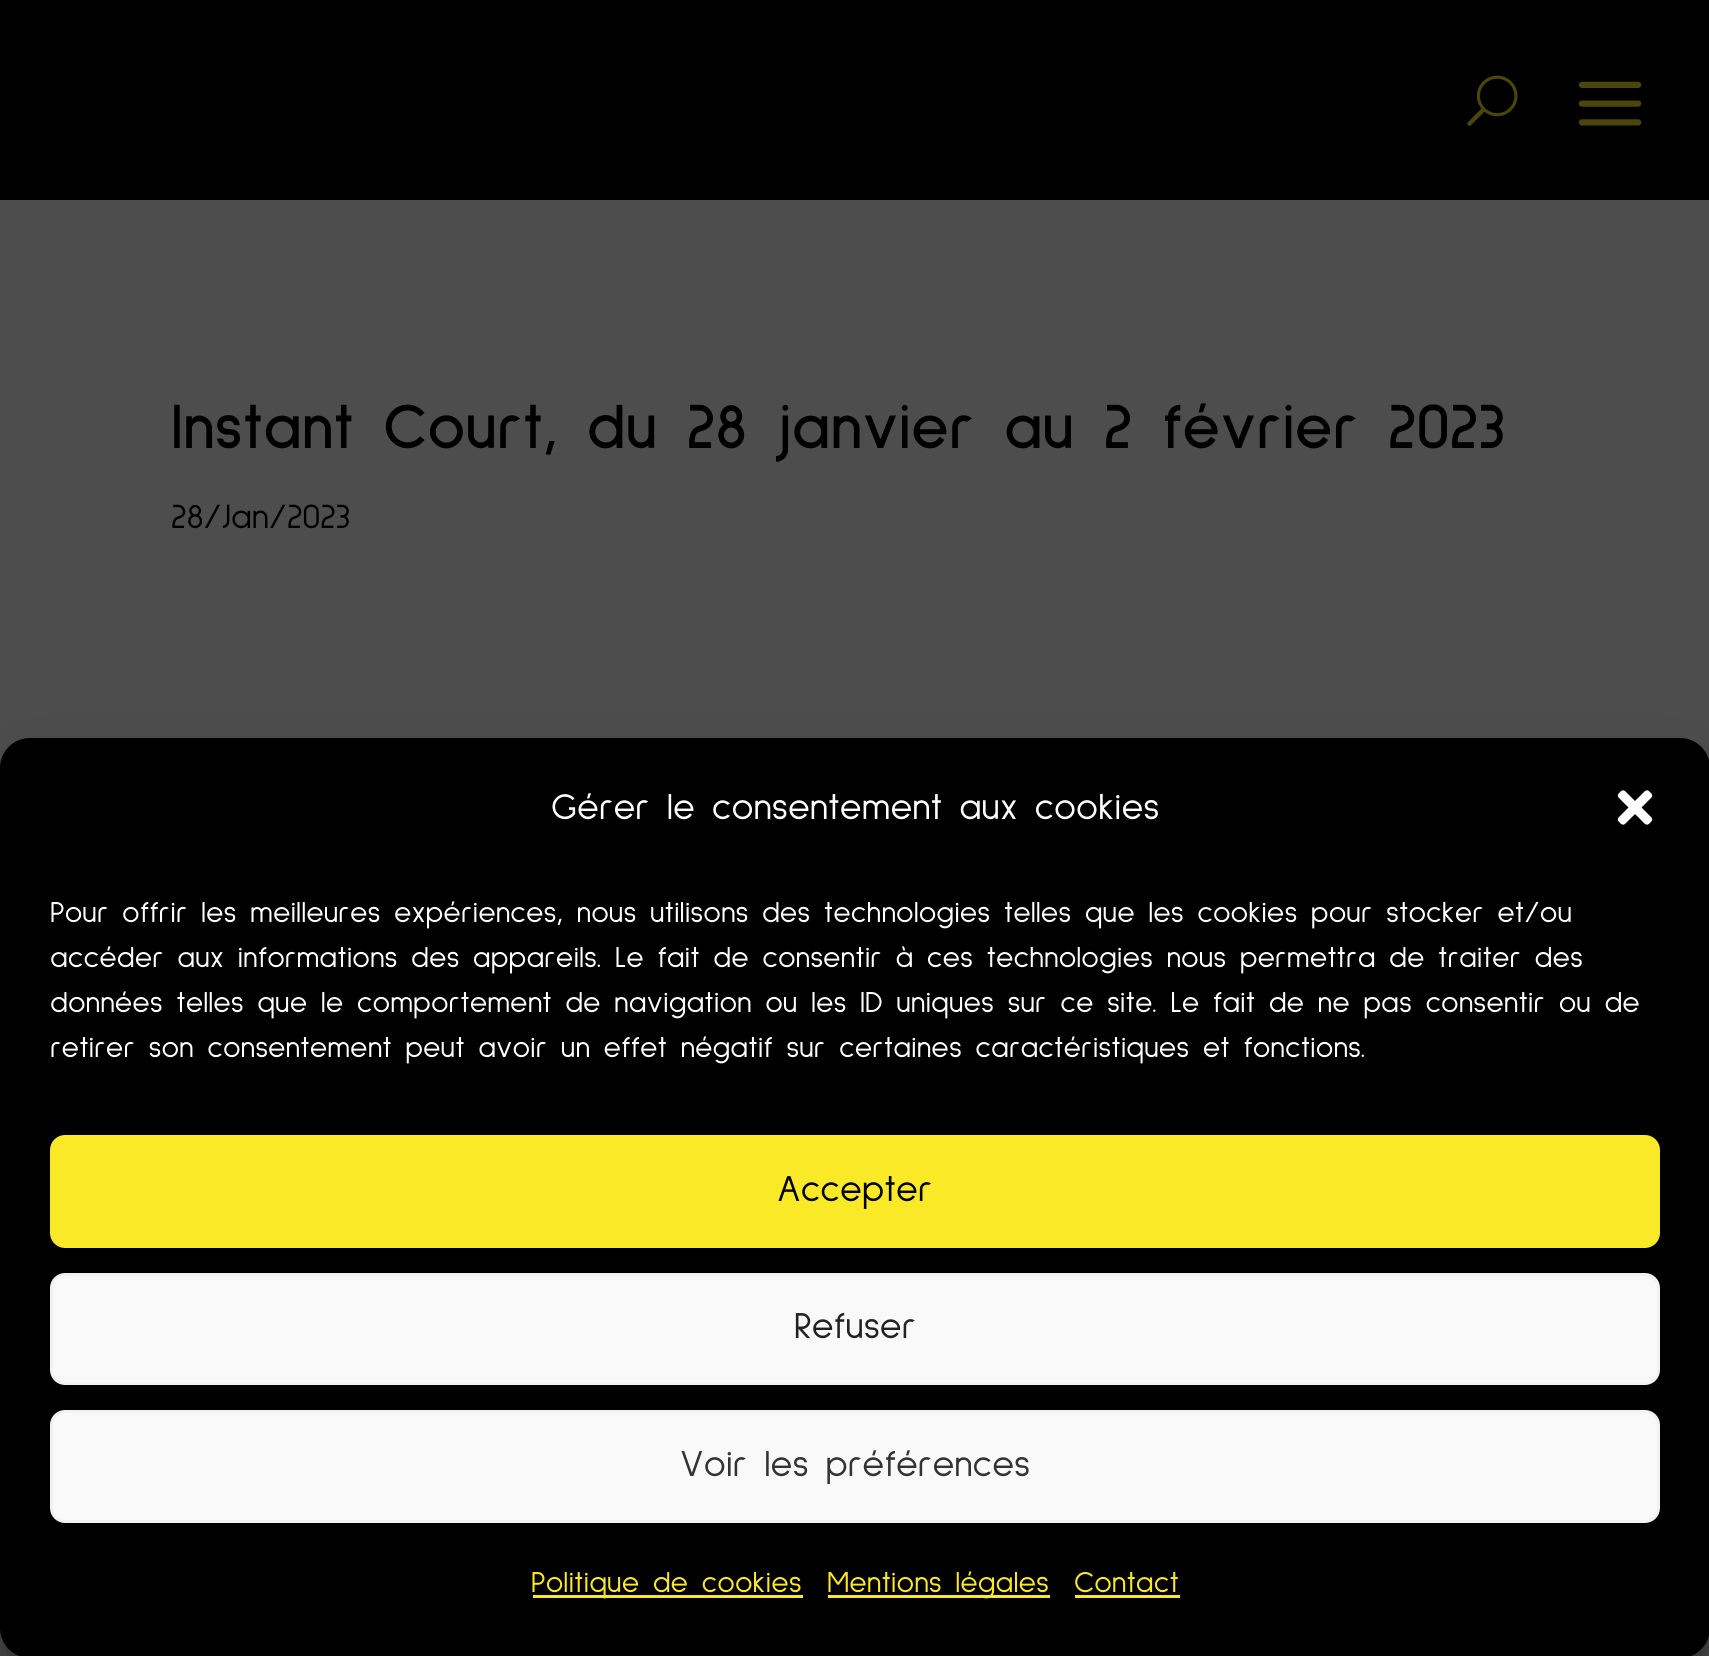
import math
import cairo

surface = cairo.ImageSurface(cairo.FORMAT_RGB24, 1709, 1656)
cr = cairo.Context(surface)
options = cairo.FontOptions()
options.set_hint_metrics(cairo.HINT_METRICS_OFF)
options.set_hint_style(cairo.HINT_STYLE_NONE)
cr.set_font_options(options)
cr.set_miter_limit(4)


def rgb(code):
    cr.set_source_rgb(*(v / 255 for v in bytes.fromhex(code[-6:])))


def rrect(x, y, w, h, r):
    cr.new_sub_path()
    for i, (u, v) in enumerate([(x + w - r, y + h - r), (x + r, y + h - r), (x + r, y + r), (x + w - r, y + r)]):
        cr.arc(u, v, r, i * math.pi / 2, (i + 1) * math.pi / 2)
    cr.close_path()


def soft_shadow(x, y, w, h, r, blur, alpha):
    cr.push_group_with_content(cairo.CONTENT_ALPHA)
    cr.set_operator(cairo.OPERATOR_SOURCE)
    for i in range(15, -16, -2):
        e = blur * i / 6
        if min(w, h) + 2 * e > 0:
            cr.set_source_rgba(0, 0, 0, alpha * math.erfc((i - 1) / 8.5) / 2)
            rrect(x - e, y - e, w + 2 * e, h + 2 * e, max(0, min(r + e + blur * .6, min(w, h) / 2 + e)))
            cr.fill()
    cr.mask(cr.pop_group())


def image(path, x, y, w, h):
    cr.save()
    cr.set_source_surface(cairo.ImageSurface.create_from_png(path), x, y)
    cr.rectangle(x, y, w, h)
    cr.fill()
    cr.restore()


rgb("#4d4d4d")
cr.paint()
rgb("#000000")
cr.rectangle(0, 0, 1709, 200)
cr.fill()
image("img/1.png", 1467, 75, 51, 51)
image("img/2.png", 1578, 81, 64, 45)
rgb("#000000")
soft_shadow(0, 753, 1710, 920, 30, 7.5, 0.23)
soft_shadow(0, 763, 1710, 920, 30, 25, 0.19)
rgb("#000000")
rrect(0, 738, 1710, 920, 30)
cr.fill()
image("img/3.png", 1617, 790, 36, 35)
rgb("#fae926")
rrect(51.5, 1136.5, 1607, 110, 13.5)
cr.fill_preserve()
cr.set_line_width(3)
cr.stroke()
rgb("#f9f9f9")
rrect(51.5, 1274.5, 1607, 109, 13.5)
cr.fill_preserve()
rgb("#f2f2f2")
cr.stroke()
rgb("#f9f9f9")
rrect(51.5, 1411.5, 1607, 110, 13.5)
cr.fill_preserve()
rgb("#f2f2f2")
cr.stroke()
for x, y, w, h, color in [
    (533, 1595, 270, 3, "#fae926"),
    (828, 1595, 222, 3, "#fae926"),
    (1075, 1595, 105, 3, "#fae926"),
]:
    rgb(color)
    cr.rectangle(x, y, w, h)
    cr.fill()
cr.select_font_face("Sulphur Point", cairo.FONT_SLANT_NORMAL, cairo.FONT_WEIGHT_BOLD)
cr.set_font_size(65)
rgb("#000000")
cr.move_to(171, 448)
cr.show_text("Instant Court, du 28 janvier au 2 février 2023")
cr.select_font_face("Sulphur Point")
cr.set_font_size(35)
cr.move_to(171, 528)
cr.show_text("28/Jan/2023")
cr.set_font_size(37.5)
rgb("#ffffff")
cr.move_to(551, 819)
cr.show_text("Gérer le consentement aux cookies")
cr.set_font_size(30)
for x, y, s in [
    (50, 922, "Pour offrir les meilleures expériences, nous utilisons des technologies telles que les cookies pour stocker et/ou"),
    (50, 967, "accéder aux informations des appareils. Le fait de consentir à ces technologies nous permettra de traiter des"),
    (50, 1012, "données telles que le comportement de navigation ou les ID uniques sur ce site. Le fait de ne pas consentir ou de"),
    (50, 1057, "retirer son consentement peut avoir un effet négatif sur certaines caractéristiques et fonctions."),
]:
    cr.move_to(x, y)
    cr.show_text(s)
cr.set_font_size(37.5)
rgb("#000000")
cr.move_to(777, 1201)
cr.show_text("Accepter")
rgb("#222222")
cr.move_to(794, 1338)
cr.show_text("Refuser")
rgb("#333333")
cr.move_to(680, 1476)
cr.show_text("Voir les préférences")
cr.set_font_size(30)
rgb("#fae926")
for x, y, s in [
    (531, 1592, "Politique de cookies"),
    (827, 1592, "Mentions légales"),
    (1074, 1592, "Contact"),
]:
    cr.move_to(x, y)
    cr.show_text(s)
surface.write_to_png("page.png")
